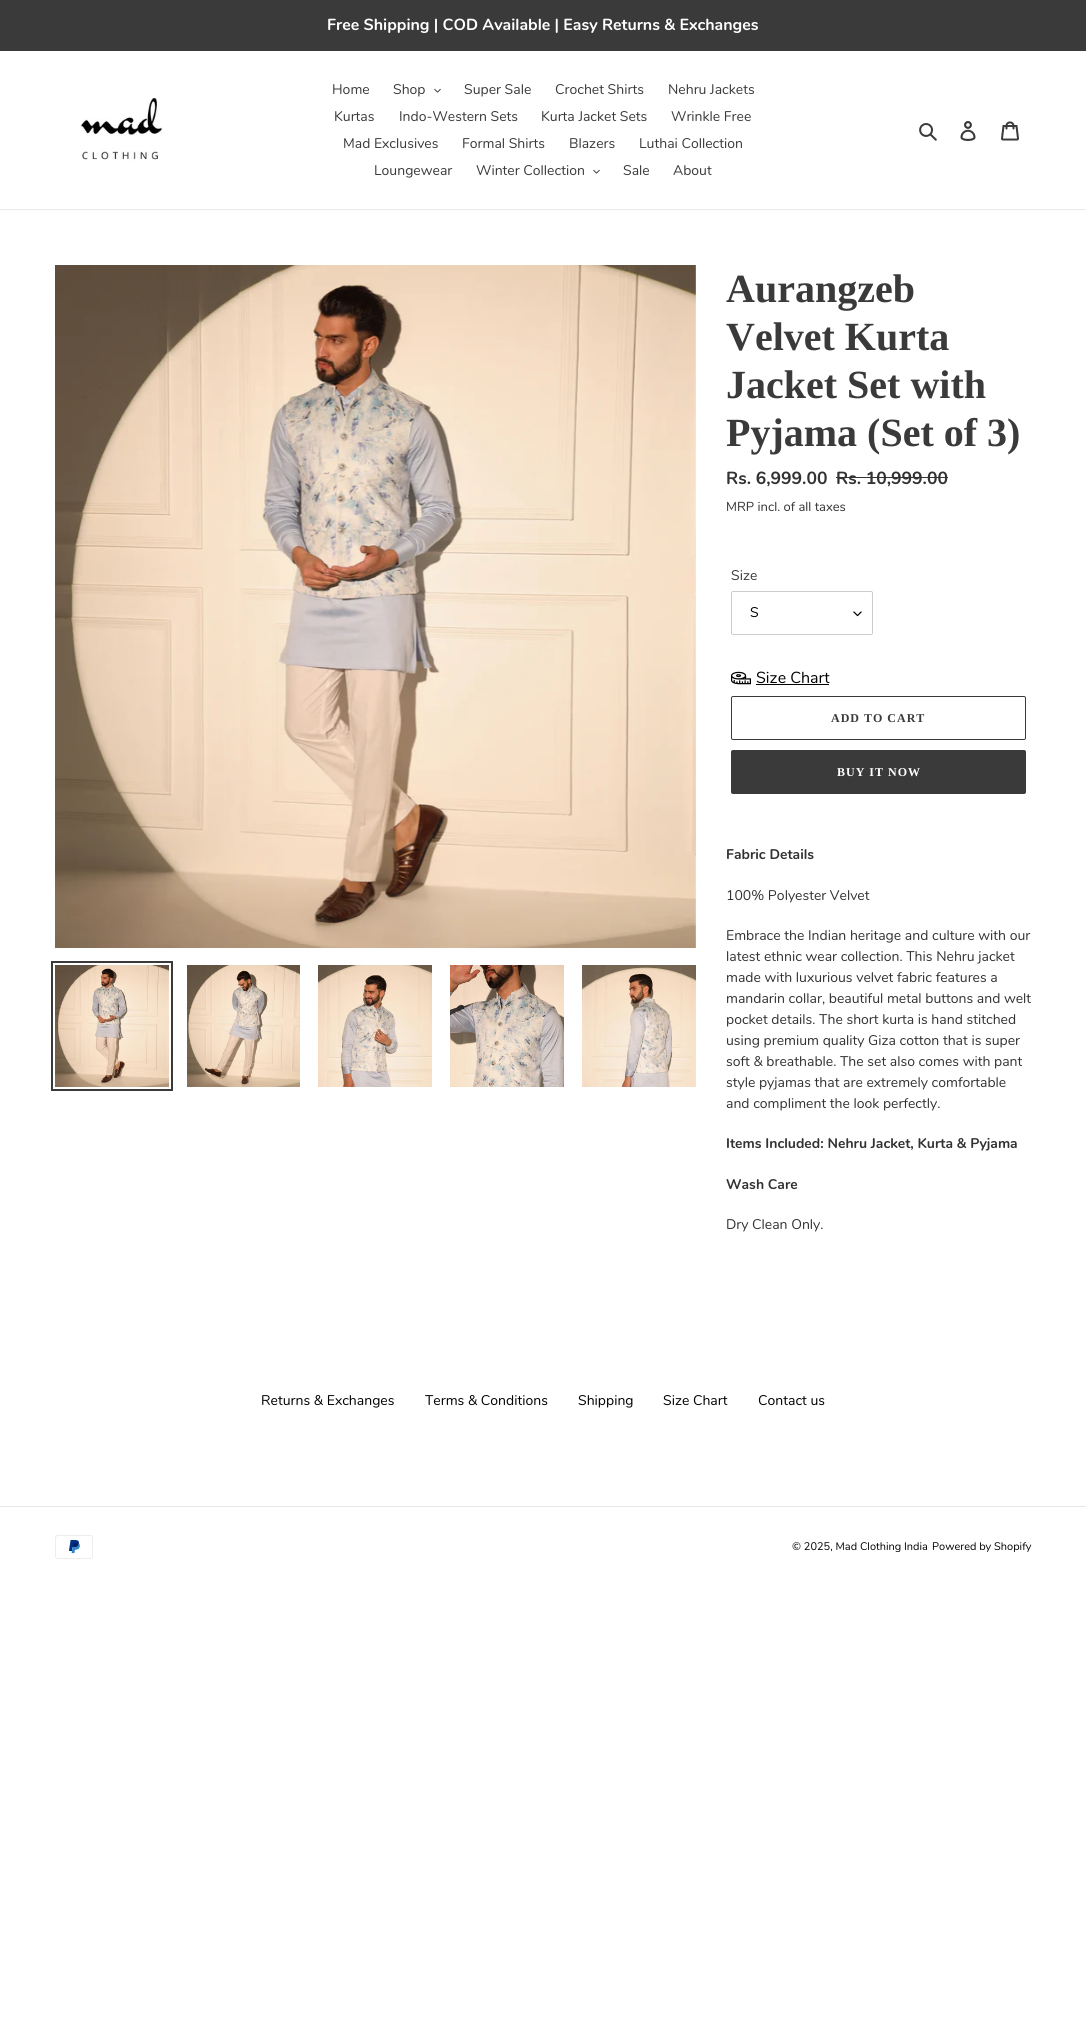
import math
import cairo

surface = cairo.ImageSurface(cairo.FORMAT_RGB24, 1086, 2023)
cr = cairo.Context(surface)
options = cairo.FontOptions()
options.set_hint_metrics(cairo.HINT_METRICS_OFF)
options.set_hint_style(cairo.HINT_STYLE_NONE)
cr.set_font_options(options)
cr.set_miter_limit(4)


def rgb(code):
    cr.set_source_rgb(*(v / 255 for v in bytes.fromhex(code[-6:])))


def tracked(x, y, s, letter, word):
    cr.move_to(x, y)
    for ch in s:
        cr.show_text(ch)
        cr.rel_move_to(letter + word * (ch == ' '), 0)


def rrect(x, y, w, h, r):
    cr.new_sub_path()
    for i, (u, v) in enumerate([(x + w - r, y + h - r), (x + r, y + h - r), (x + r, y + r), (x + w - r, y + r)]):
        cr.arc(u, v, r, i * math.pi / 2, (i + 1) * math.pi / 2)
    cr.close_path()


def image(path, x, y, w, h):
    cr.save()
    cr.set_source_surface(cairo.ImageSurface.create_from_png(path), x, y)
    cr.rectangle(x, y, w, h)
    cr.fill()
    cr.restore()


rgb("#ffffff")
cr.paint()
rgb("#3a3a3a")
cr.rectangle(0, 0, 1086, 51)
cr.fill()
rgb("#ebebeb")
cr.rectangle(0, 209, 1086, 1)
cr.fill()
image("img/1.png", 81, 98, 82, 63)
image("img/2.png", 434, 88, 7, 5)
image("img/2.png", 593, 169, 7, 5)
image("img/3.png", 919, 123, 18, 18)
image("img/4.png", 960, 121, 16, 20)
image("img/5.png", 1001, 121, 18, 20)
image("img/6.png", 55, 265, 641, 683)
cr.rectangle(52, 962, 120, 128)
rgb("#3a3a3a")
cr.stroke()
image("img/7.png", 55, 965, 114, 122)
image("img/8.png", 187, 965, 113, 122)
image("img/9.png", 318, 965, 114, 122)
image("img/10.png", 450, 965, 114, 122)
image("img/11.png", 582, 965, 114, 122)
rgb("#333232")
cr.rectangle(836, 477, 112, 1)
cr.fill()
image("img/12.png", 853, 611, 9, 6)
rrect(731.5, 591.5, 141, 43, 1.5)
rgb("#cccccc")
cr.set_line_width(1)
cr.stroke()
image("img/13.png", 731, 671, 20, 14)
rgb("#000000")
cr.rectangle(756, 684, 73, 1)
cr.fill()
rrect(731.5, 696.5, 294, 43, 1.5)
rgb("#3a3a3a")
cr.stroke()
rrect(731, 750, 295, 44, 2)
cr.fill()
rgb("#e6e6e6")
cr.rectangle(0, 1506, 1086, 1)
cr.fill()
image("img/14.png", 55, 1535, 38, 24)
cr.select_font_face("Nunito", cairo.FONT_SLANT_NORMAL, cairo.FONT_WEIGHT_BOLD)
cr.set_font_size(16)
rgb("#ffffff")
cr.move_to(327, 30)
cr.show_text("Free Shipping | COD Available | Easy Returns & Exchanges")
cr.select_font_face("Nunito")
cr.set_font_size(14)
rgb("#3a3a3a")
for x, y, s in [
    (332, 94, "Home"),
    (393, 94, "Shop"),
    (464, 94, "Super Sale"),
    (555, 94, "Crochet Shirts"),
    (668, 94, "Nehru Jackets"),
    (334, 121, "Kurtas"),
    (399, 121, "Indo-Western Sets"),
    (541, 121, "Kurta Jacket Sets"),
    (671, 121, "Wrinkle Free"),
    (343, 148, "Mad Exclusives"),
    (462, 148, "Formal Shirts"),
    (569, 148, "Blazers"),
    (639, 148, "Luthai Collection"),
    (374, 175, "Loungewear"),
    (476, 175, "Winter Collection"),
    (623, 175, "Sale"),
    (673, 175, "About"),
]:
    cr.move_to(x, y)
    cr.show_text(s)
cr.select_font_face("Liberation Serif", cairo.FONT_SLANT_NORMAL, cairo.FONT_WEIGHT_BOLD)
cr.set_font_size(40)
for x, y, s in [
    (726, 302, "Aurangzeb"),
    (726, 350, "Velvet Kurta"),
    (726, 398, "Jacket Set with"),
    (726, 446, "Pyjama (Set of 3)"),
]:
    cr.move_to(x, y)
    cr.show_text(s)
cr.select_font_face("Nunito", cairo.FONT_SLANT_NORMAL, cairo.FONT_WEIGHT_BOLD)
cr.set_font_size(17.5)
rgb("#333232")
cr.move_to(726, 484)
cr.show_text("Rs. 6,999.00")
cr.move_to(836, 484)
cr.show_text("Rs. 10,999.00")
cr.select_font_face("Nunito")
cr.set_font_size(13)
cr.move_to(726, 511)
cr.show_text("MRP incl. of all taxes")
cr.set_font_size(14)
rgb("#3a3a3a")
cr.move_to(731, 580)
cr.show_text("Size")
rgb("#000000")
cr.move_to(750, 617)
cr.show_text("S")
cr.set_font_size(16)
cr.move_to(756, 683)
cr.show_text("Size Chart")
cr.select_font_face("Liberation Serif", cairo.FONT_SLANT_NORMAL, cairo.FONT_WEIGHT_BOLD)
cr.set_font_size(12)
rgb("#3a3a3a")
tracked(831, 722, "ADD TO CART", 1, 0)
rgb("#ffffff")
tracked(837, 776, "BUY IT NOW", 1, 0)
cr.select_font_face("Nunito", cairo.FONT_SLANT_NORMAL, cairo.FONT_WEIGHT_BOLD)
cr.set_font_size(14)
rgb("#333232")
cr.move_to(726, 859)
cr.show_text("Fabric Details")
cr.select_font_face("Nunito")
for x, y, s in [
    (726, 900, "100% Polyester Velvet"),
    (726, 940, "Embrace the Indian heritage and culture with our"),
    (726, 961, "latest ethnic wear collection. This Nehru jacket"),
    (726, 982, "made with luxurious velvet fabric features a"),
    (726, 1003, "mandarin collar, beautiful metal buttons and welt"),
    (726, 1024, "pocket details. The short kurta is hand stitched"),
    (726, 1045, "using premium quality Giza cotton that is super"),
    (726, 1066, "soft & breathable. The set also comes with pant"),
    (726, 1087, "style pyjamas that are extremely comfortable"),
    (726, 1108, "and compliment the look perfectly."),
]:
    cr.move_to(x, y)
    cr.show_text(s)
cr.select_font_face("Nunito", cairo.FONT_SLANT_NORMAL, cairo.FONT_WEIGHT_BOLD)
cr.move_to(726, 1148)
cr.show_text("Items Included: Nehru Jacket, Kurta & Pyjama")
cr.move_to(726, 1189)
cr.show_text("Wash Care")
cr.select_font_face("Nunito")
cr.move_to(726, 1229)
cr.show_text("Dry Clean Only.")
rgb("#000000")
for x, y, s in [
    (261, 1405, "Returns & Exchanges"),
    (425, 1405, "Terms & Conditions"),
    (578, 1405, "Shipping"),
    (663, 1405, "Size Chart"),
    (758, 1405, "Contact us"),
]:
    cr.move_to(x, y)
    cr.show_text(s)
cr.set_font_size(11)
cr.move_to(792, 1550)
cr.show_text("© 2025, Mad Clothing India")
cr.move_to(932, 1550)
cr.show_text("Powered by Shopify")
surface.write_to_png("page.png")
